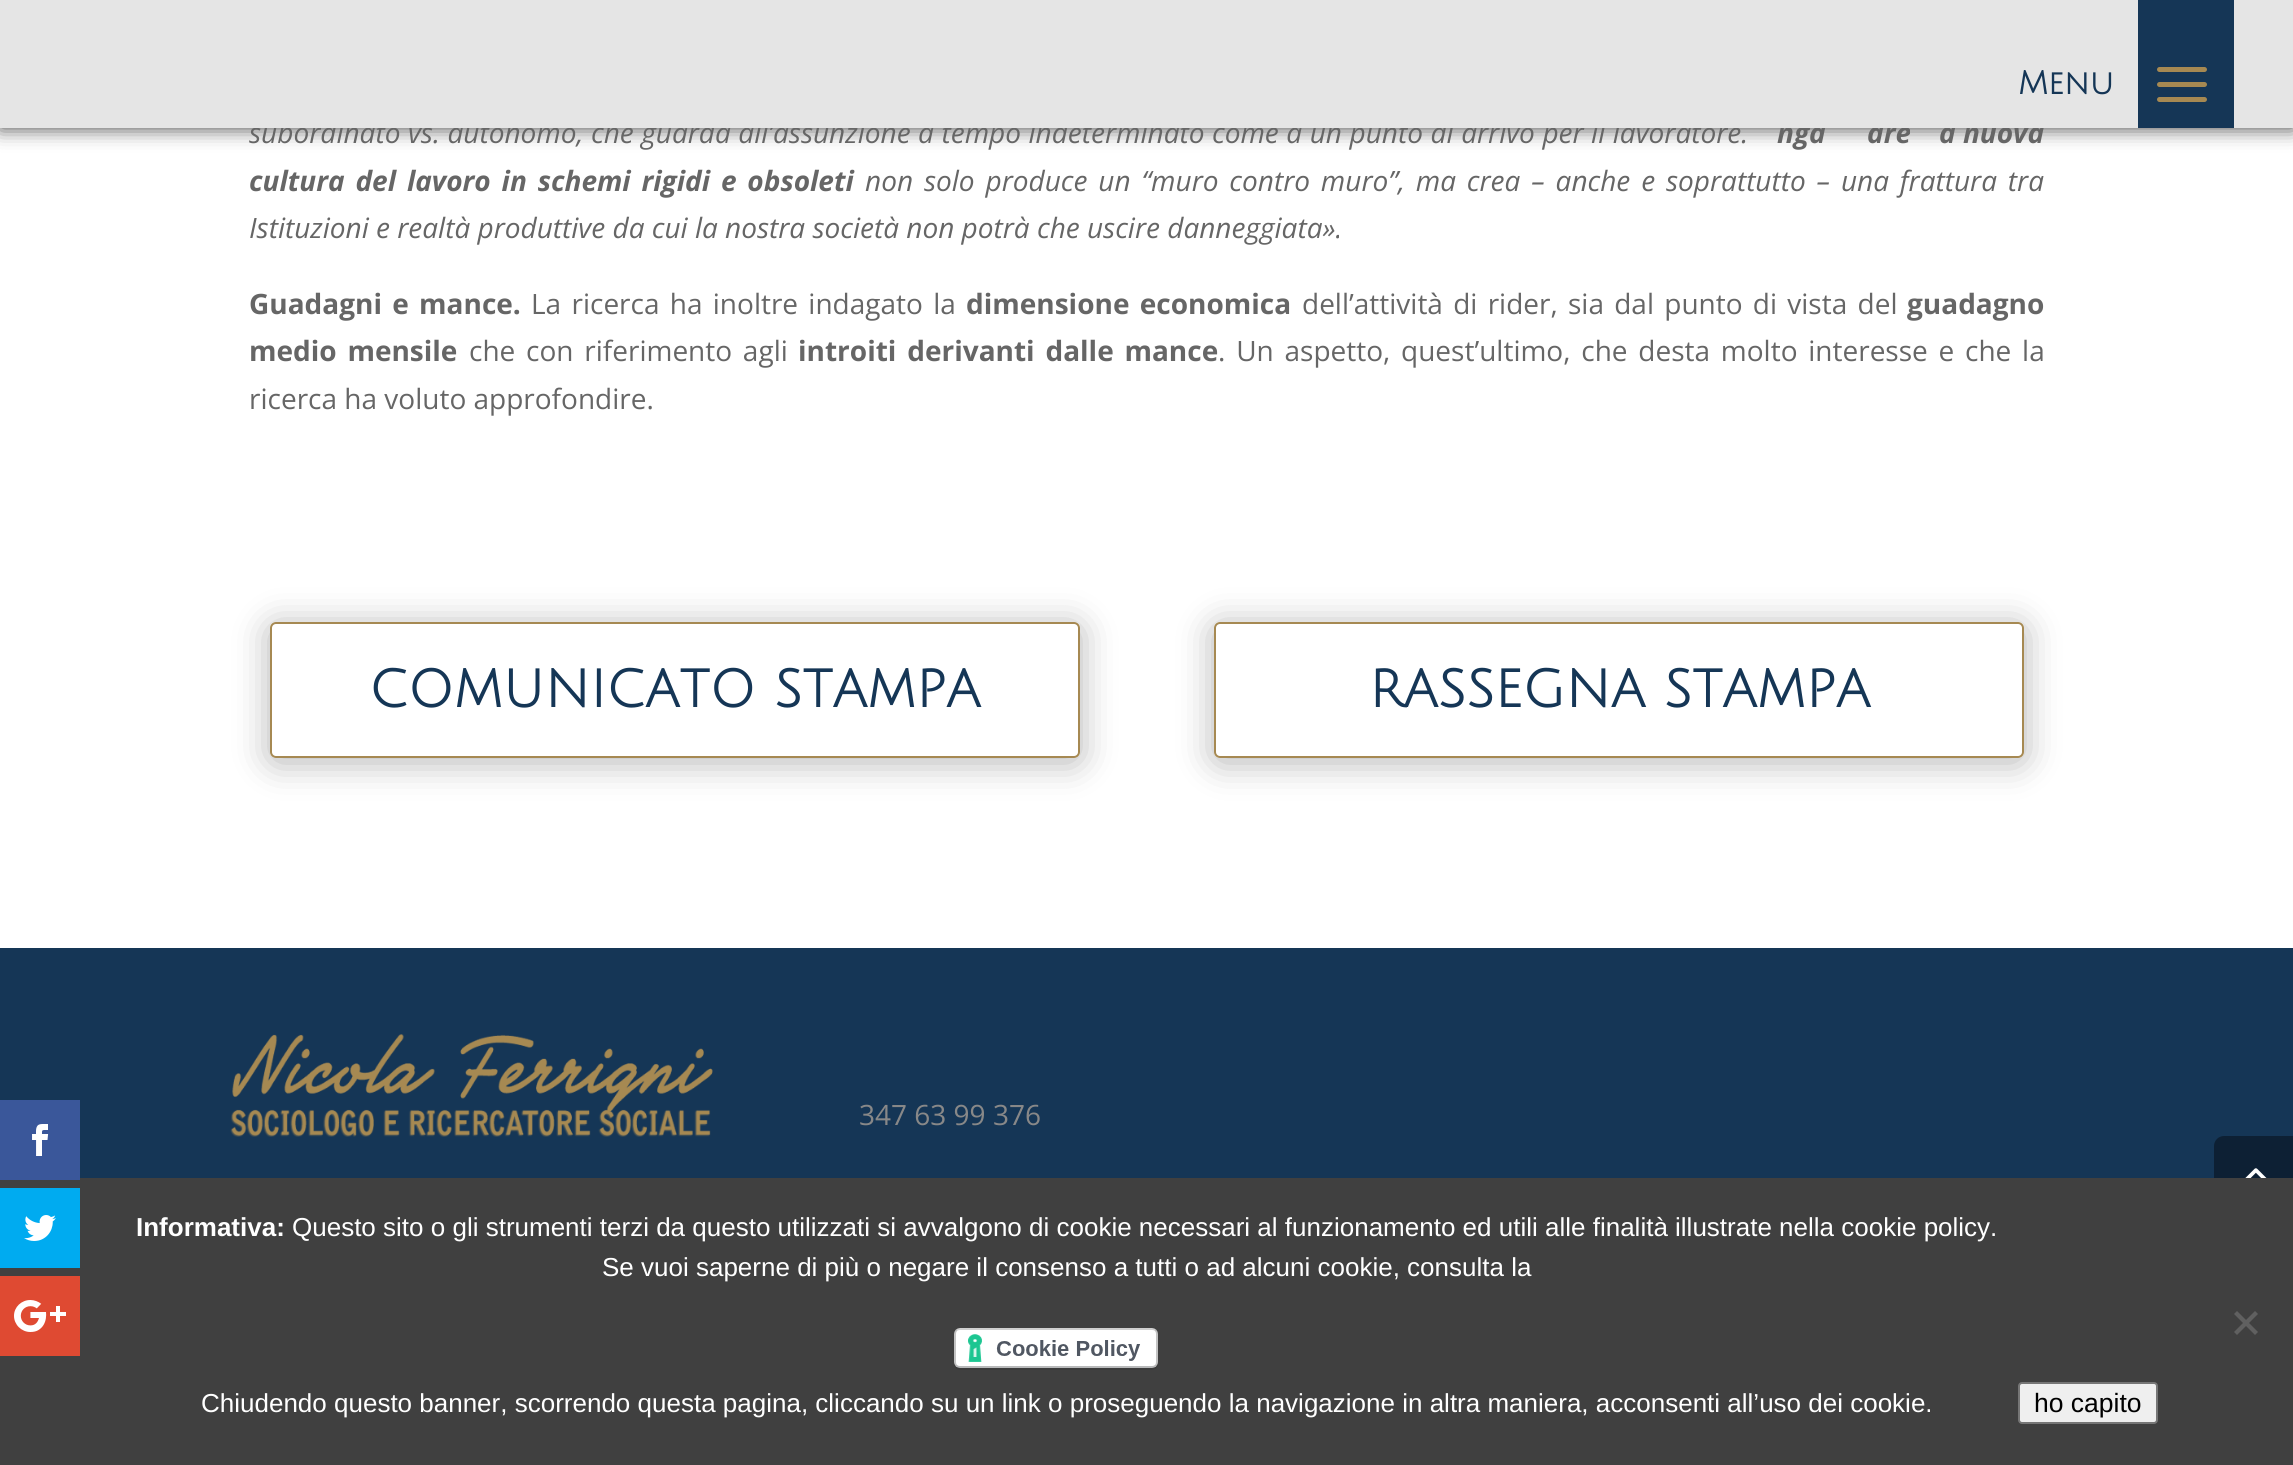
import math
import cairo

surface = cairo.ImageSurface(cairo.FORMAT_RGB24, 2293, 1465)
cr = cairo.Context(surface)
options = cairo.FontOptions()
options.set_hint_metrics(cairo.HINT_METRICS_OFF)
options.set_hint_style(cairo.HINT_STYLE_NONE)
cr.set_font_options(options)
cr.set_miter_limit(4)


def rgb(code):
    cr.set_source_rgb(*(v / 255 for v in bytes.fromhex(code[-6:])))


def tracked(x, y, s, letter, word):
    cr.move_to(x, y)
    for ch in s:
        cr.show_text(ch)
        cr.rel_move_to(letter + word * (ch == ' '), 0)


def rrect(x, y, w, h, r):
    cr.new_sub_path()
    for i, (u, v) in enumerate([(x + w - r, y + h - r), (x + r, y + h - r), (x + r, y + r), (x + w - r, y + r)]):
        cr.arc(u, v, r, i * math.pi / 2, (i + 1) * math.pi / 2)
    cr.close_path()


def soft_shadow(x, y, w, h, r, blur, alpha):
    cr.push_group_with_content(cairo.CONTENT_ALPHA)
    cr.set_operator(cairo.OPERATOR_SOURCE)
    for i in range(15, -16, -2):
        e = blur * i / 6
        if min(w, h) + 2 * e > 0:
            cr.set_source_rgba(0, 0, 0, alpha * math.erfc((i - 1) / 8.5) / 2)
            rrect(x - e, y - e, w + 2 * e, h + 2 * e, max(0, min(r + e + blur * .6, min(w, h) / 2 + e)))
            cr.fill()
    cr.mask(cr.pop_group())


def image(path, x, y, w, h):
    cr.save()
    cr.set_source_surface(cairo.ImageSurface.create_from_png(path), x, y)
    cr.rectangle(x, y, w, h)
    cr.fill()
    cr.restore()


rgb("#ffffff")
cr.paint()
rgb("#000000")
soft_shadow(0, 0, 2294, 128, 0, 10, 0.75)
cr.save()
cr.set_fill_rule(cairo.FILL_RULE_EVEN_ODD)
cr.new_path()
cr.move_to(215, 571)
cr.line_to(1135, 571)
cr.line_to(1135, 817)
cr.line_to(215, 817)
cr.close_path()
cr.move_to(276, 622)
cr.line_to(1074, 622)
cr.curve_to(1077.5, 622, 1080, 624.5, 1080, 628)
cr.line_to(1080, 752)
cr.curve_to(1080, 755.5, 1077.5, 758, 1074, 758)
cr.line_to(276, 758)
cr.curve_to(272.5, 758, 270, 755.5, 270, 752)
cr.line_to(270, 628)
cr.curve_to(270, 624.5, 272.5, 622, 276, 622)
cr.close_path()
cr.clip()
soft_shadow(270, 626, 810, 136, 6, 18, 0.3)
cr.restore()
rrect(271, 623, 808, 134, 5)
rgb("#a68952")
cr.stroke()
cr.save()
cr.set_fill_rule(cairo.FILL_RULE_EVEN_ODD)
cr.new_path()
cr.move_to(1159, 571)
cr.line_to(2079, 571)
cr.line_to(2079, 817)
cr.line_to(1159, 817)
cr.close_path()
cr.move_to(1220, 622)
cr.line_to(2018, 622)
cr.curve_to(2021.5, 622, 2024, 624.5, 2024, 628)
cr.line_to(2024, 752)
cr.curve_to(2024, 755.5, 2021.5, 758, 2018, 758)
cr.line_to(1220, 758)
cr.curve_to(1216.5, 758, 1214, 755.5, 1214, 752)
cr.line_to(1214, 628)
cr.curve_to(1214, 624.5, 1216.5, 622, 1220, 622)
cr.close_path()
cr.clip()
rgb("#000000")
soft_shadow(1214, 626, 810, 136, 6, 18, 0.3)
cr.restore()
rrect(1215, 623, 808, 134, 5)
cr.stroke()
rgb("#153656")
cr.rectangle(0, 948, 2293, 230)
cr.fill()
image("img/2.png", 230, 1034, 483, 103)
rgb("#0d2034")
cr.new_path()
cr.move_to(2224, 1136)
cr.line_to(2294, 1136)
cr.line_to(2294, 1216)
cr.line_to(2224, 1216)
cr.curve_to(2218.5, 1216, 2214, 1211.5, 2214, 1206)
cr.line_to(2214, 1146)
cr.curve_to(2214, 1140.5, 2218.5, 1136, 2224, 1136)
cr.close_path()
cr.fill()
image("img/3.png", 2245, 1168, 22, 10)
rgb("#404040")
cr.rectangle(0, 1178, 2293, 287)
cr.fill()
rgb("#3a579a")
cr.rectangle(0, 1100, 80, 80)
cr.fill()
image("img/4.png", 32, 1124, 17, 32)
rgb("#00abf0")
cr.rectangle(0, 1188, 80, 80)
cr.fill()
image("img/5.png", 24, 1215, 32, 26)
rgb("#df4a32")
cr.rectangle(0, 1276, 80, 80)
cr.fill()
image("img/6.png", 14, 1300, 52, 32)
image("img/7.png", 954, 1328, 204, 42)
rgb("#606060")
cr.new_path()
cr.move_to(2255, 1311)
cr.line_to(2258, 1314)
cr.line_to(2237, 1335)
cr.line_to(2234, 1332)
cr.close_path()
cr.fill()
cr.new_path()
cr.move_to(2234, 1314)
cr.line_to(2237, 1311)
cr.line_to(2258, 1332)
cr.line_to(2255, 1335)
cr.close_path()
cr.fill()
rgb("#efefef")
rrect(2019, 1383, 138, 40, 3)
cr.fill_preserve()
rgb("#767676")
cr.stroke()
cr.select_font_face("Open Sans", cairo.FONT_SLANT_ITALIC)
cr.set_font_size(28)
rgb("#666666")
tracked(249, 143, "subordinato vs. autonomo, che guarda all’assunzione a tempo indeterminato come a un punto di arrivo per il lavoratore.", 0, 0.25)
cr.select_font_face("Open Sans", cairo.FONT_SLANT_ITALIC, cairo.FONT_WEIGHT_BOLD)
for x, y, s in [
    (1777, 143, "nga"),
    (1867, 143, "are"),
    (1939, 143, "a nuova"),
]:
    cr.move_to(x, y)
    cr.show_text(s)
rgb("#e5e5e5")
cr.rectangle(0, 0, 2293, 128)
cr.fill()
rgb("#153656")
cr.rectangle(2138, 0, 96, 128)
cr.fill()
image("img/1.png", 2157, 67, 50, 35)
cr.select_font_face("Julius Sans One", cairo.FONT_SLANT_NORMAL, cairo.FONT_WEIGHT_BOLD)
cr.set_font_size(32)
cr.move_to(2018, 94)
cr.show_text("Menu")
cr.select_font_face("Open Sans", cairo.FONT_SLANT_ITALIC, cairo.FONT_WEIGHT_BOLD)
cr.set_font_size(28)
rgb("#666666")
tracked(249, 191, "cultura del lavoro in schemi rigidi e obsoleti", 0, 3.6)
cr.select_font_face("Open Sans", cairo.FONT_SLANT_ITALIC)
tracked(865, 191, "non solo produce un “muro contro muro”, ma crea – anche e soprattutto – una frattura tra", 0, 3.6)
cr.move_to(249, 238)
cr.show_text("Istituzioni e realtà produttive da cui la nostra società non potrà che uscire danneggiata».")
cr.select_font_face("Open Sans", cairo.FONT_SLANT_NORMAL, cairo.FONT_WEIGHT_BOLD)
tracked(249, 314, "Guadagni e mance.", 0, 3)
cr.select_font_face("Open Sans")
tracked(531, 314, "La ricerca ha inoltre indagato la", 0, 3)
cr.select_font_face("Open Sans", cairo.FONT_SLANT_NORMAL, cairo.FONT_WEIGHT_BOLD)
tracked(966, 314, "dimensione economica", 0, 3)
cr.select_font_face("Open Sans")
tracked(1302, 314, "dell’attività di rider, sia dal punto di vista del", 0, 3)
cr.select_font_face("Open Sans", cairo.FONT_SLANT_NORMAL, cairo.FONT_WEIGHT_BOLD)
cr.move_to(1907, 314)
cr.show_text("guadagno")
tracked(249, 361, "medio mensile", 0, 3.5)
cr.select_font_face("Open Sans")
tracked(469, 361, "che con riferimento agli", 0, 3.5)
cr.select_font_face("Open Sans", cairo.FONT_SLANT_NORMAL, cairo.FONT_WEIGHT_BOLD)
tracked(798, 361, "introiti derivanti dalle mance", 0, 3.5)
cr.select_font_face("Open Sans")
tracked(1218, 361, ". Un aspetto, quest’ultimo, che desta molto interesse e che la", 0, 3.5)
cr.move_to(249, 409)
cr.show_text("ricerca ha voluto approfondire.")
cr.select_font_face("Julius Sans One", cairo.FONT_SLANT_NORMAL, cairo.FONT_WEIGHT_BOLD)
cr.set_font_size(52)
rgb("#153656")
cr.move_to(369, 707)
cr.show_text("COMUNICATO STAMPA")
cr.move_to(1369, 707)
cr.show_text("RASSEGNA STAMPA")
cr.select_font_face("Open Sans")
cr.set_font_size(28)
rgb("#888888")
cr.move_to(859, 1125)
cr.show_text("347 63 99 376")
cr.select_font_face("Liberation Sans", cairo.FONT_SLANT_NORMAL, cairo.FONT_WEIGHT_BOLD)
cr.set_font_size(26)
rgb("#ffffff")
cr.move_to(136, 1236)
cr.show_text("Informativa:")
cr.select_font_face("Liberation Sans")
for x, y, s in [
    (292, 1236, "Questo sito o gli strumenti terzi da questo utilizzati si avvalgono di cookie necessari al funzionamento ed utili alle finalità illustrate nella cookie policy."),
    (602, 1276, "Se vuoi saperne di più o negare il consenso a tutti o ad alcuni cookie, consulta la"),
    (201, 1412, "Chiudendo questo banner, scorrendo questa pagina, cliccando su un link o proseguendo la navigazione in altra maniera, acconsenti all’uso dei cookie."),
]:
    cr.move_to(x, y)
    cr.show_text(s)
cr.set_font_size(26.5)
rgb("#000000")
cr.move_to(2034, 1412)
cr.show_text("ho capito")
surface.write_to_png("page.png")
